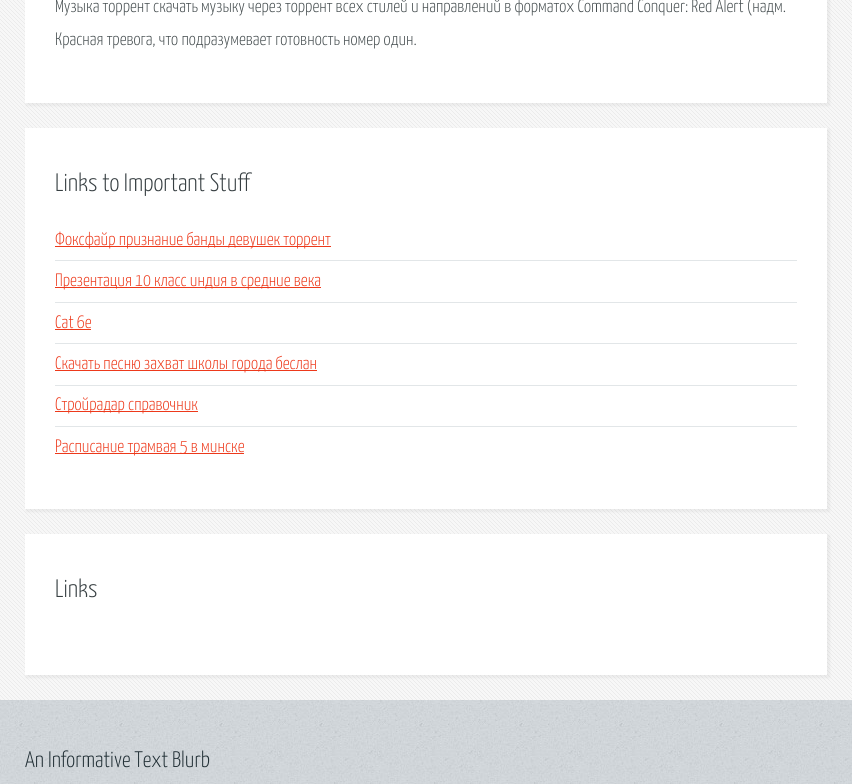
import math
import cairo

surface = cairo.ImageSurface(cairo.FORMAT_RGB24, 852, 784)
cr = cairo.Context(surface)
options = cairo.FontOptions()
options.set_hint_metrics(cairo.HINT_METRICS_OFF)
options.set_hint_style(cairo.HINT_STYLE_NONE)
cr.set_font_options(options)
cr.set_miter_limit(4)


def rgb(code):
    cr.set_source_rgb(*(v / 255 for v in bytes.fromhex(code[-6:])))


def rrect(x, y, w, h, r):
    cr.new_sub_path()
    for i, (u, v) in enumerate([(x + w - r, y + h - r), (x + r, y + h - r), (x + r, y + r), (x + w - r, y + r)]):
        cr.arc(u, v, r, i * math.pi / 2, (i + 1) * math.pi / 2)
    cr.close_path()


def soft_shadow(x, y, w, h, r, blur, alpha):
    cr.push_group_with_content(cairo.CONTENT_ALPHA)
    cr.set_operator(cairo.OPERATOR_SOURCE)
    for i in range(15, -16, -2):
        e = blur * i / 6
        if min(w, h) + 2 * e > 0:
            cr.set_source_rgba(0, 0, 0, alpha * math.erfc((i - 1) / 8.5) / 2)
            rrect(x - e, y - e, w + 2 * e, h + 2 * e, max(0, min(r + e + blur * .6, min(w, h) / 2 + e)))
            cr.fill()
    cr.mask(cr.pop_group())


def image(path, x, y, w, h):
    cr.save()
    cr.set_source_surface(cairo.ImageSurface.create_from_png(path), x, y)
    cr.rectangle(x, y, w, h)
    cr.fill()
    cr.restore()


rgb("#ffffff")
cr.paint()
image("img/1.png", 0, 700, 852, 84)
rgb("#f7f7f7")
cr.rectangle(0, 0, 852, 700)
cr.fill()
image("img/2.png", 0, 0, 852, 700)
rgb("#808080")
soft_shadow(26, -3, 804, 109, 0, 1, 0.1)
rgb("#ffffff")
cr.rectangle(25, 0, 802, 103)
cr.fill()
rgb("#808080")
soft_shadow(26, 129, 804, 383, 0, 1, 0.1)
for x, y, w, h, color in [
    (25, 128, 802, 381, "#ffffff"),
    (55, 260, 742, 1, "#e2e6e8"),
    (55, 246, 276, 1, "#ed391b"),
    (55, 302, 742, 1, "#e2e6e8"),
    (55, 287, 266, 1, "#ed391b"),
    (55, 343, 742, 1, "#e2e6e8"),
    (55, 329, 36, 1, "#ed391b"),
    (55, 385, 742, 1, "#e2e6e8"),
    (55, 370, 262, 1, "#ed391b"),
    (55, 426, 742, 1, "#e2e6e8"),
    (55, 411, 143, 1, "#ed391b"),
    (55, 453, 189, 1, "#ed391b"),
]:
    rgb(color)
    cr.rectangle(x, y, w, h)
    cr.fill()
rgb("#808080")
soft_shadow(26, 535, 804, 143, 0, 1, 0.1)
rgb("#ffffff")
cr.rectangle(25, 534, 802, 141)
cr.fill()
cr.select_font_face("Yanone Kaffeesatz Light")
cr.set_font_size(18)
rgb("#474f51")
cr.move_to(55, 12)
cr.show_text("Музыка торрент скачать музыку через торрент всех стилей и направлений в форматох Command Conquer: Red Alert (надм.")
cr.move_to(55, 45)
cr.show_text("Красная тревога, что подразумевает готовность номер один.")
cr.set_font_size(25.25)
rgb("#373f42")
cr.move_to(55, 191)
cr.show_text("Links to Important Stuff")
cr.set_font_size(18)
rgb("#ed391b")
for x, y, s in [
    (55, 245, "Фоксфайр признание банды девушек торрент"),
    (55, 286, "Презентация 10 класс индия в средние века"),
    (55, 328, "Cat 6e"),
    (55, 369, "Скачать песню захват школы города беслан"),
    (55, 410, "Стройрадар справочник"),
    (55, 452, "Расписание трамвая 5 в минске"),
]:
    cr.move_to(x, y)
    cr.show_text(s)
cr.set_font_size(25.25)
rgb("#373f42")
cr.move_to(55, 597)
cr.show_text("Links")
cr.set_font_size(22.5)
rgb("#212f35")
cr.move_to(25, 767)
cr.show_text("An Informative Text Blurb")
surface.write_to_png("page.png")
